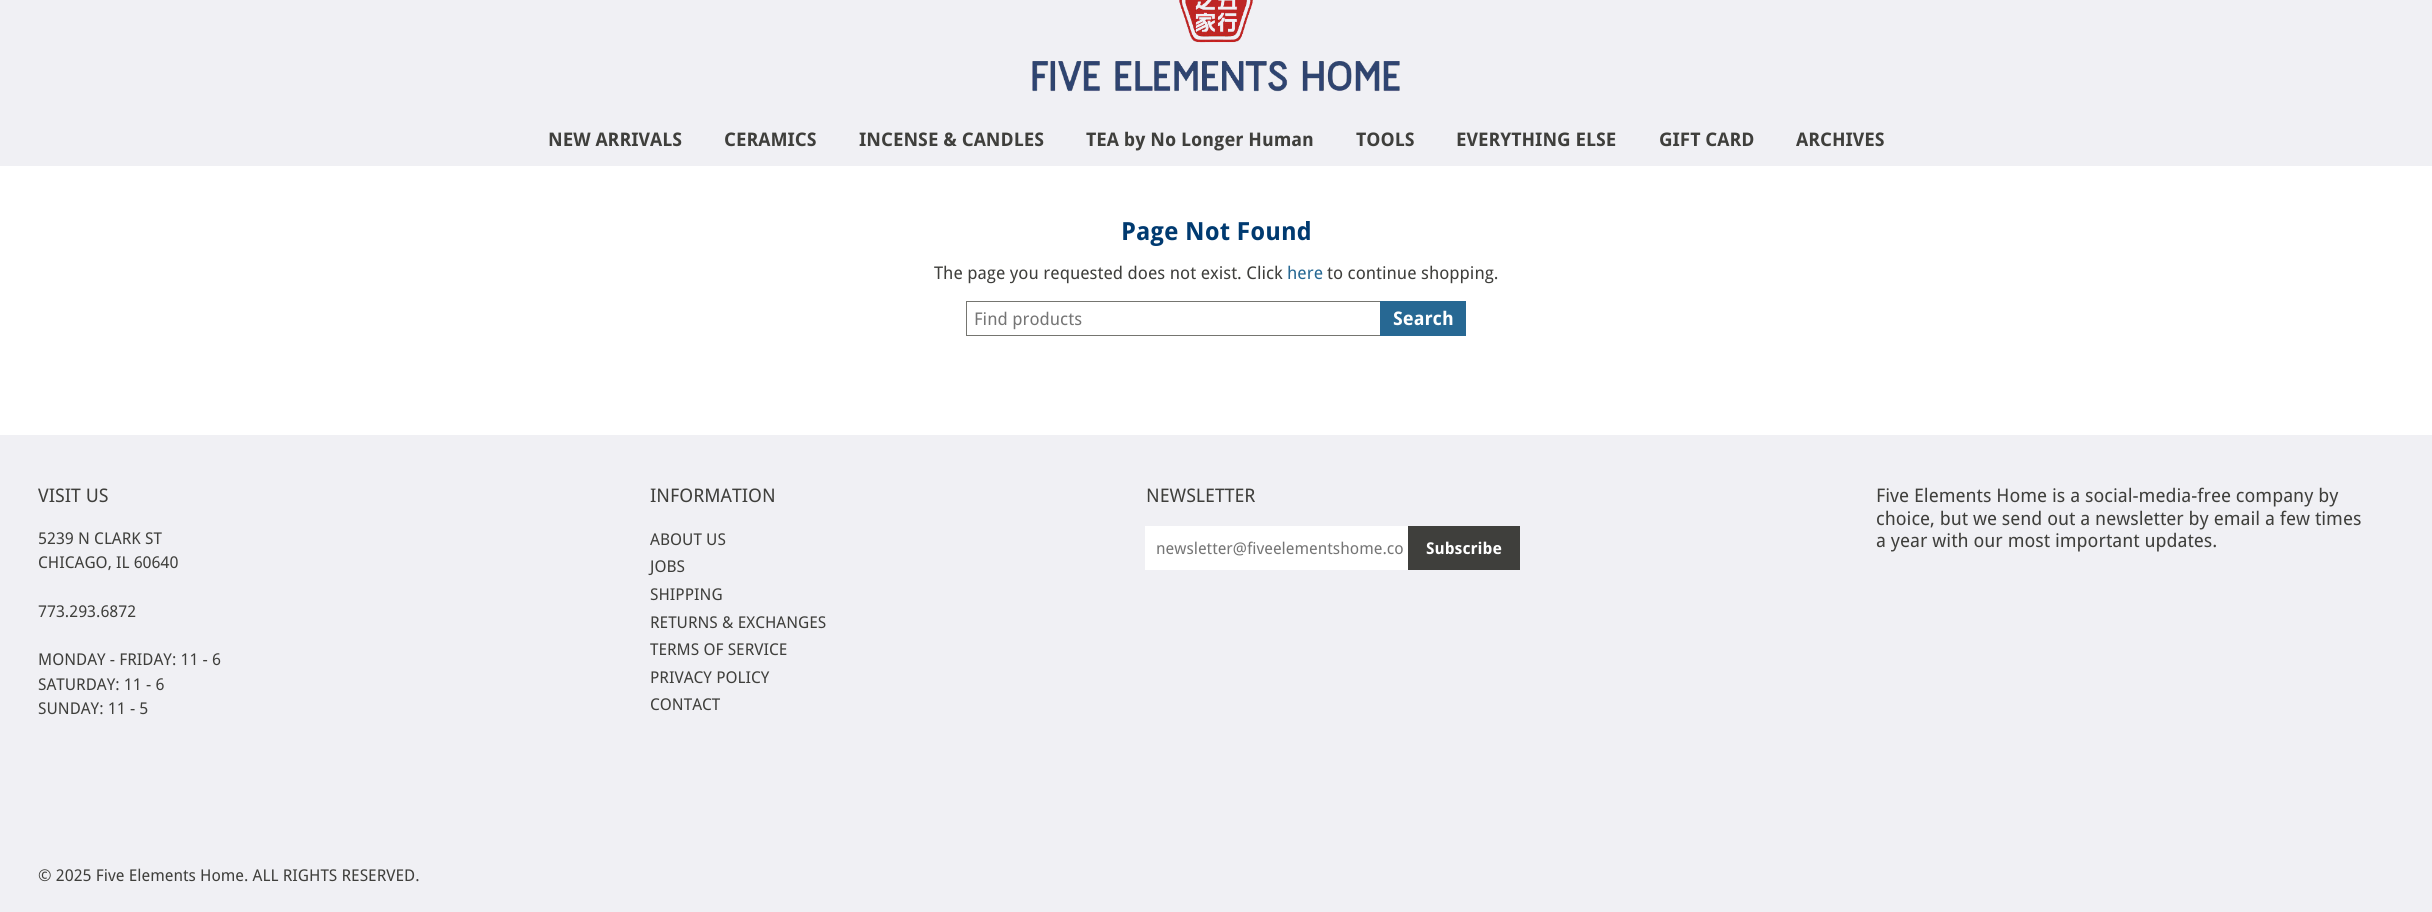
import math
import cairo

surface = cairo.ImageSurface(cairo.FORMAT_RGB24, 2432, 912)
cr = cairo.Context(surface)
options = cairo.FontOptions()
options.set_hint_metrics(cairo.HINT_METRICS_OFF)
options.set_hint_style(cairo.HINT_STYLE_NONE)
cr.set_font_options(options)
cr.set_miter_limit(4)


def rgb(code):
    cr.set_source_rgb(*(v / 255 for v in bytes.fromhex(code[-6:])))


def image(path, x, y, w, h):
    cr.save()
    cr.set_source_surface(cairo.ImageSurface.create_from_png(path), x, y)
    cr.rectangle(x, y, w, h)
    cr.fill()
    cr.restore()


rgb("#ffffff")
cr.paint()
rgb("#f0f0f4")
cr.rectangle(0, 0, 2432, 166)
cr.fill()
image("img/1.png", 1032, 0, 368, 92)
cr.rectangle(966.5, 301.5, 499, 34)
rgb("#757570")
cr.set_line_width(1)
cr.stroke()
for x, y, w, h, color in [
    (1380, 301, 86, 35, "#276893"),
    (0, 435, 2432, 477, "#f0f0f4"),
    (1145, 526, 263, 44, "#ffffff"),
    (1408, 526, 112, 44, "#3f3f3c"),
]:
    rgb(color)
    cr.rectangle(x, y, w, h)
    cr.fill()
cr.select_font_face("Droid Sans", cairo.FONT_SLANT_NORMAL, cairo.FONT_WEIGHT_BOLD)
cr.set_font_size(18.75)
for x, y, s in [
    (548, 146, "NEW ARRIVALS"),
    (724, 146, "CERAMICS"),
    (859, 146, "INCENSE & CANDLES"),
    (1086, 146, "TEA by No Longer Human"),
    (1356, 146, "TOOLS"),
    (1456, 146, "EVERYTHING ELSE"),
    (1659, 146, "GIFT CARD"),
    (1796, 146, "ARCHIVES"),
]:
    cr.move_to(x, y)
    cr.show_text(s)
cr.set_font_size(25)
rgb("#003a70")
cr.move_to(1121, 240)
cr.show_text("Page Not Found")
cr.select_font_face("Droid Sans")
cr.set_font_size(17.5)
rgb("#3f3f3c")
cr.move_to(934, 279)
cr.show_text("The page you requested does not exist. Click")
rgb("#276893")
cr.move_to(1287, 279)
cr.show_text("here")
rgb("#3f3f3c")
cr.move_to(1327, 279)
cr.show_text("to continue shopping.")
rgb("#757575")
cr.move_to(974, 325)
cr.show_text("Find products")
cr.select_font_face("Droid Sans", cairo.FONT_SLANT_NORMAL, cairo.FONT_WEIGHT_BOLD)
cr.set_font_size(18.75)
rgb("#ffffff")
cr.move_to(1393, 325)
cr.show_text("Search")
cr.select_font_face("Droid Sans")
rgb("#3f3f3c")
cr.move_to(38, 502)
cr.show_text("VISIT US")
cr.set_font_size(16.25)
for x, y, s in [
    (38, 544, "5239 N CLARK ST"),
    (38, 568, "CHICAGO, IL 60640"),
    (38, 617, "773.293.6872"),
    (38, 665, "MONDAY - FRIDAY: 11 - 6"),
    (38, 690, "SATURDAY: 11 - 6"),
    (38, 714, "SUNDAY: 11 - 5"),
]:
    cr.move_to(x, y)
    cr.show_text(s)
cr.set_font_size(18.75)
cr.move_to(650, 502)
cr.show_text("INFORMATION")
cr.set_font_size(16.25)
for x, y, s in [
    (650, 545, "ABOUT US"),
    (650, 572, "JOBS"),
    (650, 600, "SHIPPING"),
    (650, 628, "RETURNS & EXCHANGES"),
    (650, 655, "TERMS OF SERVICE"),
    (650, 683, "PRIVACY POLICY"),
    (650, 710, "CONTACT"),
]:
    cr.move_to(x, y)
    cr.show_text(s)
cr.set_font_size(18.75)
cr.move_to(1146, 502)
cr.show_text("NEWSLETTER")
cr.set_font_size(16.25)
rgb("#757575")
cr.move_to(1156, 554)
cr.show_text("newsletter@fiveelementshome.co")
cr.select_font_face("Droid Sans", cairo.FONT_SLANT_NORMAL, cairo.FONT_WEIGHT_BOLD)
rgb("#ffffff")
cr.move_to(1426, 554)
cr.show_text("Subscribe")
cr.select_font_face("Droid Sans")
cr.set_font_size(18.75)
rgb("#3f3f3c")
for x, y, s in [
    (1876, 502, "Five Elements Home is a social-media-free company by"),
    (1876, 525, "choice, but we send out a newsletter by email a few times"),
    (1876, 547, "a year with our most important updates."),
]:
    cr.move_to(x, y)
    cr.show_text(s)
cr.set_font_size(16.25)
cr.move_to(38, 881)
cr.show_text("© 2025 Five Elements Home. ALL RIGHTS RESERVED.")
surface.write_to_png("page.png")
